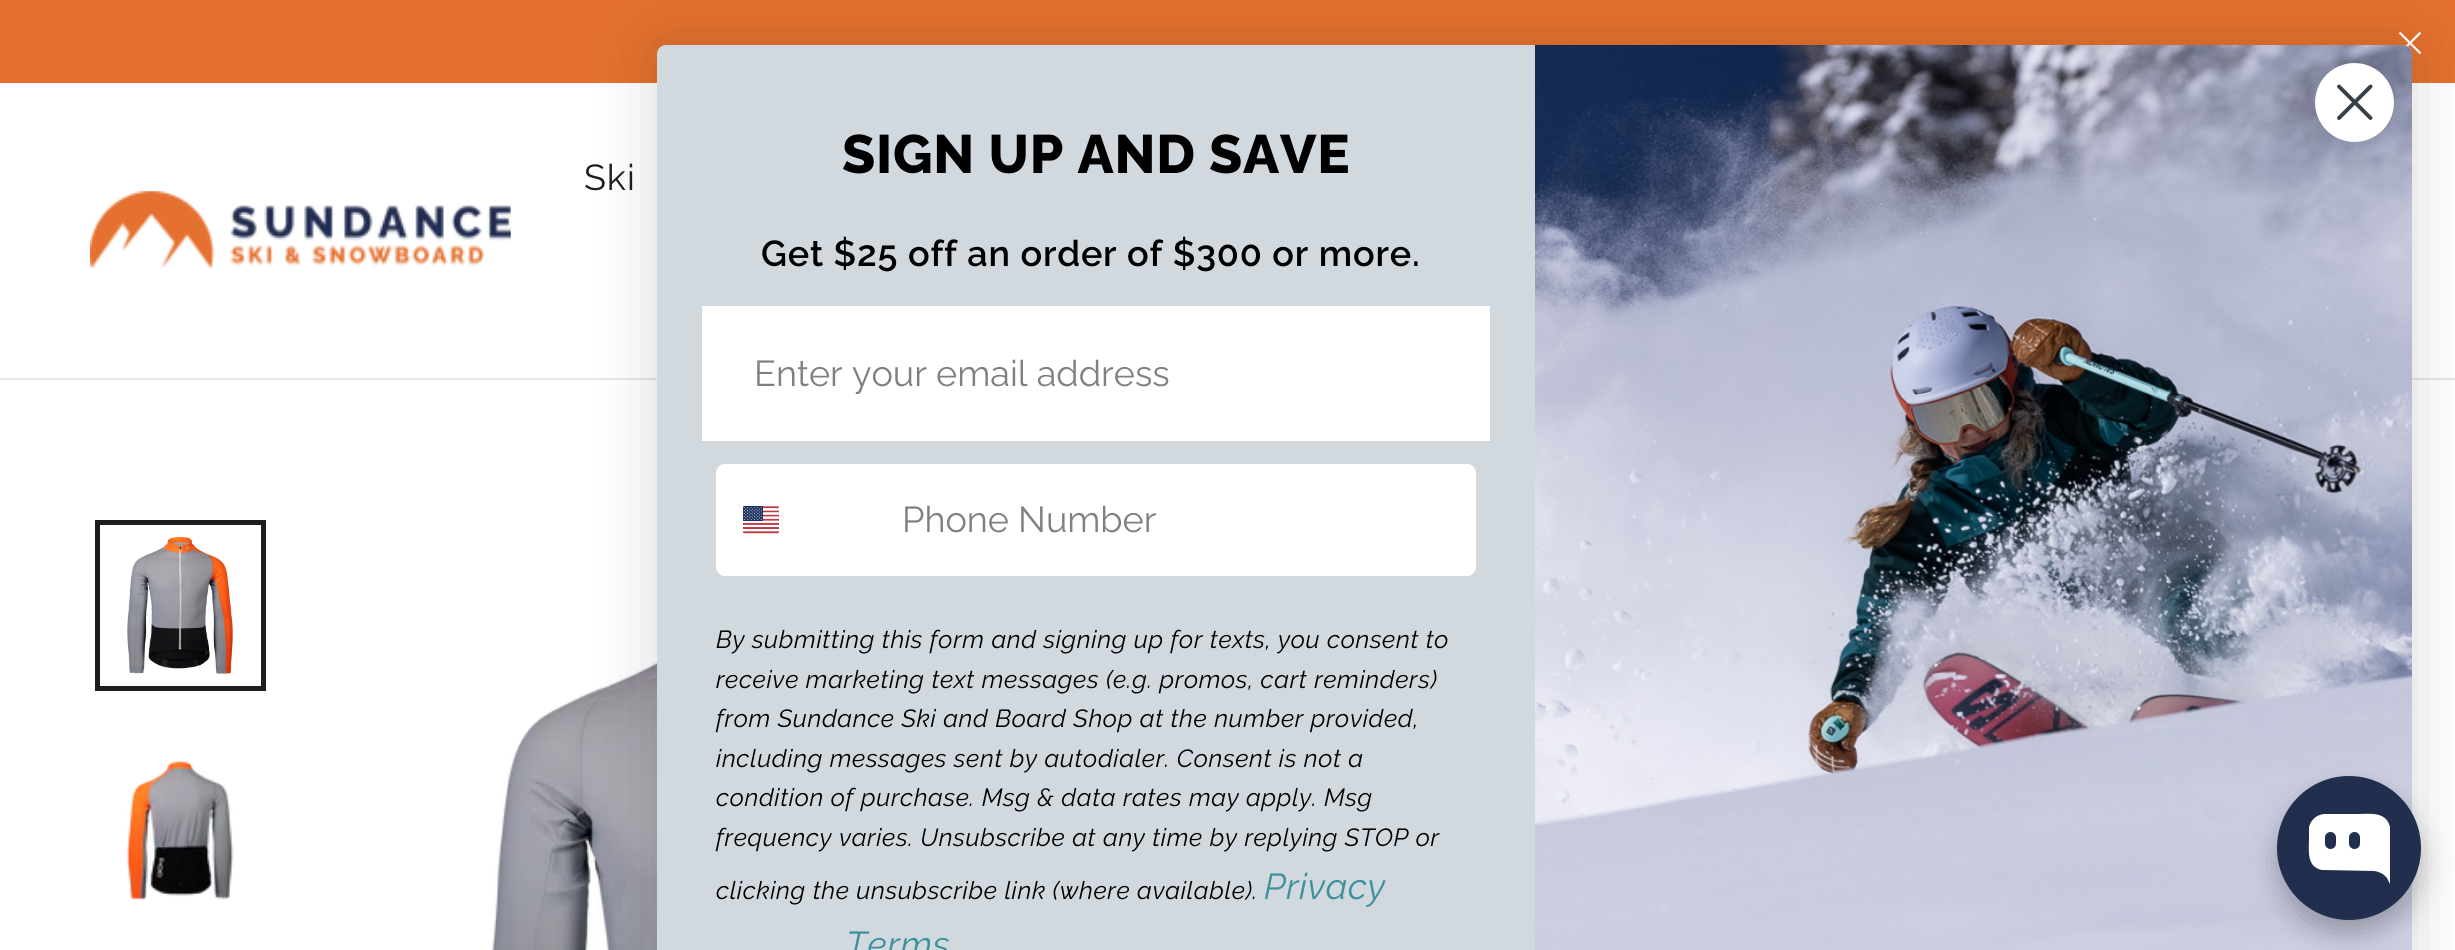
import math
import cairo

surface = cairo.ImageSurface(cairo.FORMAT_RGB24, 2455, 950)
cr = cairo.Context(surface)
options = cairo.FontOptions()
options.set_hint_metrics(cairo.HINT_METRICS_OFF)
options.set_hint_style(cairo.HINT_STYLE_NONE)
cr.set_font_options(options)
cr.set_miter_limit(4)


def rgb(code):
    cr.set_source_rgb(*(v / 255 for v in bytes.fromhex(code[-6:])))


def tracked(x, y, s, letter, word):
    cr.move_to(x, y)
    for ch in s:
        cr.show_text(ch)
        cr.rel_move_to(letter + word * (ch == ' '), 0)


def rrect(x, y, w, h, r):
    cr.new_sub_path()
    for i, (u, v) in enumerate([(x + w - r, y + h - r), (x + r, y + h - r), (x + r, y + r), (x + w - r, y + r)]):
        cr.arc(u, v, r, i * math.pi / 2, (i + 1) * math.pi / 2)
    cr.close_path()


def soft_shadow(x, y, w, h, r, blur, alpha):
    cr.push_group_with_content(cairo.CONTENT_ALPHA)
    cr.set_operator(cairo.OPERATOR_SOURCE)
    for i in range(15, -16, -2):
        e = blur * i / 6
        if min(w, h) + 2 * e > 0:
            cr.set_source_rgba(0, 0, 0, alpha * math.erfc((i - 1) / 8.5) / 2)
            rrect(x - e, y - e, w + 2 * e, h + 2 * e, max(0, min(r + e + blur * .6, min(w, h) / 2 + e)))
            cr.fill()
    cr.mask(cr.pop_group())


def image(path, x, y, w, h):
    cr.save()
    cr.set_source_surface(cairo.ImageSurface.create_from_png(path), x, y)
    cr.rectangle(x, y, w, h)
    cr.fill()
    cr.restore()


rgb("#ffffff")
cr.paint()
rgb("#e4712e")
cr.rectangle(0, 0, 2455, 83)
cr.fill()
cr.new_path()
cr.move_to(2399.5, 32.5)
cr.line_to(2420.5, 53.5)
cr.move_to(2420.5, 32.5)
cr.line_to(2399.5, 53.5)
rgb("#ffffff")
cr.set_line_width(2.3)
cr.stroke()
rgb("#e8e8e1")
cr.rectangle(0, 378, 2455, 2)
cr.fill()
image("img/1.png", 90, 191, 421, 77)
image("img/2.png", 127, 537, 106, 137)
cr.rectangle(97.5, 522.5, 166, 166)
rgb("#1c1d1d")
cr.set_line_width(5)
cr.stroke()
image("img/3.png", 126, 760, 108, 141)
image("img/4.png", 492, 662, 165, 288)
rgb("#000000")
soft_shadow(657, 45, 1755, 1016, 9, 34, 0.15)
rgb("#d1d8de")
rrect(657, 45, 1755, 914, 9)
cr.fill()
image("img/6.png", 1535, 45, 877, 905)
rgb("#ffffff")
cr.arc(2354.5, 102.5, 37.5, 0, 2 * math.pi)
cr.fill_preserve()
cr.set_line_width(3.9)
cr.stroke()
cr.new_path()
cr.move_to(2339, 86.5)
cr.line_to(2370.5, 118)
cr.move_to(2339, 118)
cr.line_to(2370.5, 86.5)
cr.close_path()
rgb("#373f47")
cr.set_line_cap(cairo.LINE_CAP_ROUND)
cr.set_line_join(cairo.LINE_JOIN_ROUND)
cr.stroke()
rgb("#ffffff")
cr.rectangle(702, 306, 788, 135)
cr.fill()
rrect(717, 465, 758, 110, 8)
cr.fill_preserve()
cr.set_line_width(2)
cr.set_line_cap(cairo.LINE_CAP_BUTT)
cr.set_line_join(cairo.LINE_JOIN_MITER)
cr.stroke()
image("img/5.png", 743, 506, 36, 28)
rgb("#000000")
soft_shadow(2277, 790, 144, 144, 72, 13.5, 0.25)
rgb("#212e4e")
cr.arc(2349, 848, 72, 0, 2 * math.pi)
cr.fill()
rgb("#ffffff")
cr.set_fill_rule(cairo.FILL_RULE_EVEN_ODD)
cr.new_path()
cr.move_to(2325, 814)
cr.curve_to(2318, 814, 2311, 819, 2309, 827)
cr.line_to(2309, 838)
cr.curve_to(2309, 850, 2306, 867, 2322, 870)
cr.line_to(2373, 871)
cr.curve_to(2378, 871, 2384, 874, 2387, 878)
cr.line_to(2390, 884)
cr.line_to(2390, 883)
cr.line_to(2390, 827)
cr.curve_to(2386, 811, 2370, 814, 2357, 814)
cr.close_path()
cr.fill()
rgb("#212e4e")
rrect(2325, 832, 11, 17, 5.5)
cr.fill()
rrect(2349, 832, 11, 17, 5.5)
cr.fill()
cr.select_font_face("Raleway")
cr.set_font_size(36)
rgb("#1c1d1d")
tracked(584, 190, "Ski", 1, 0)
cr.select_font_face("Raleway ExtraBold")
cr.set_font_size(54)
rgb("#000000")
tracked(842, 173, "SIGN UP AND SAVE", 0.8, 0)
cr.select_font_face("Raleway SemiBold")
cr.set_font_size(36)
tracked(761, 266, "Get $25 off an order of $300 or more.", 0.8, 0)
cr.select_font_face("Raleway")
rgb("#808080")
cr.move_to(754, 386)
cr.show_text("Enter your email address")
cr.move_to(902, 532)
cr.show_text("Phone Number")
cr.select_font_face("Raleway", cairo.FONT_SLANT_ITALIC)
cr.set_font_size(24.75)
rgb("#000000")
for x, y, s in [
    (716, 648, "By submitting this form and signing up for texts, you consent to"),
    (716, 688, "receive marketing text messages (e.g. promos, cart reminders)"),
    (716, 727, "from Sundance Ski and Board Shop at the number provided,"),
    (716, 767, "including messages sent by autodialer. Consent is not a"),
    (716, 806, "condition of purchase. Msg & data rates may apply. Msg"),
    (716, 846, "frequency varies. Unsubscribe at any time by replying STOP or"),
    (716, 899, "clicking the unsubscribe link (where available)."),
]:
    tracked(x, y, s, 0.62, 0)
cr.set_font_size(36)
rgb("#3b919b")
tracked(1264, 899, "Privacy", 0.62, 0)
tracked(846, 957, "Terms", 0.62, 0)
surface.write_to_png("page.png")
